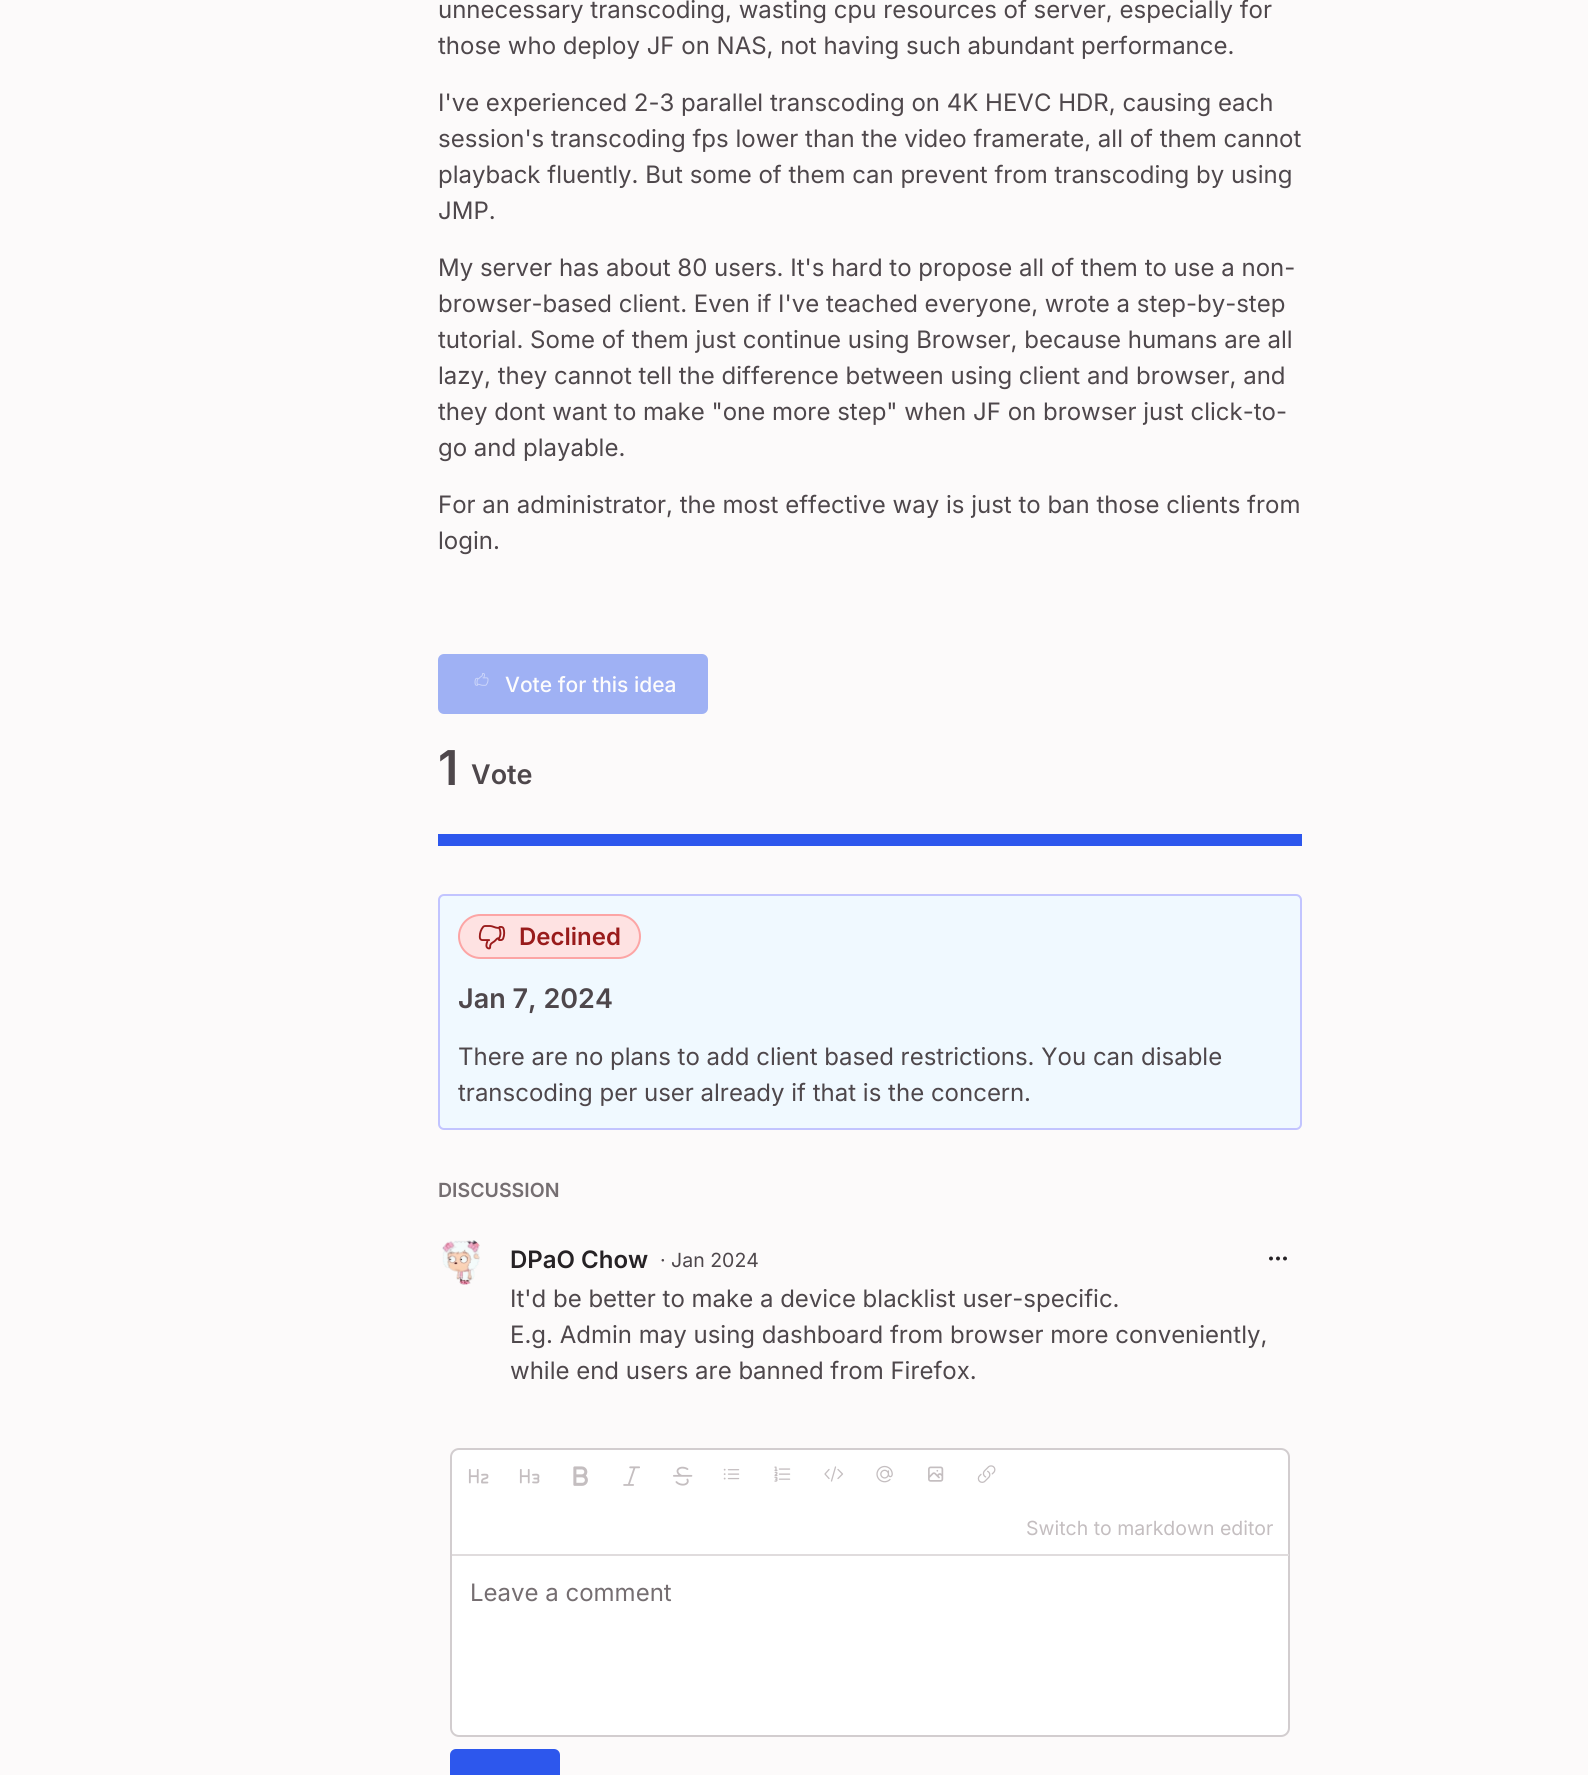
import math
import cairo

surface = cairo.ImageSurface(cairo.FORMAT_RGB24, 1588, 1775)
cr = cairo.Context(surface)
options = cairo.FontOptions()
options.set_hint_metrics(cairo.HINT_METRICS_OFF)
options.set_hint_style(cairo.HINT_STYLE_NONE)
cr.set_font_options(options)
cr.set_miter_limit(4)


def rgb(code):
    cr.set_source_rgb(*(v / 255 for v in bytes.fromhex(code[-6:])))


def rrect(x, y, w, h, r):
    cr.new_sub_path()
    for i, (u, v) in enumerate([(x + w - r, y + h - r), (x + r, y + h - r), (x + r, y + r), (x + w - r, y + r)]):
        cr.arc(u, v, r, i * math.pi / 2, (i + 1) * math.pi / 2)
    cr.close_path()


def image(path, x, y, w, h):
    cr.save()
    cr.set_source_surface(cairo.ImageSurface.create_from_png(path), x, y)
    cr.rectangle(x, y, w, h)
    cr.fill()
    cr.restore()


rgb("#fcfafa")
cr.paint()
rgb("#9fb1f4")
rrect(439, 655, 268, 58, 5)
cr.fill_preserve()
cr.stroke()
image("img/1.png", 474, 673, 15, 13)
rgb("#2d57ed")
cr.rectangle(438, 834, 864, 12)
cr.fill()
rgb("#f0f9ff")
rrect(439, 895, 862, 234, 5)
cr.fill_preserve()
rgb("#c2c4ff")
cr.stroke()
rgb("#fee2e2")
rrect(459, 915, 181, 43, 21.5)
cr.fill_preserve()
rgb("#fca5a5")
cr.stroke()
image("img/2.png", 478, 925, 28, 25)
image("img/3.png", 442, 1240, 38, 45)
image("img/4.png", 1269, 1256, 18, 5)
rgb("#ffffff")
rrect(451, 1449, 838, 287, 8)
cr.fill_preserve()
rgb("#d2cdcf")
cr.stroke()
rgb("#e0dcdd")
cr.rectangle(452, 1554, 837, 2)
cr.fill()
image("img/5.png", 468, 1469, 21, 15)
image("img/6.png", 519, 1469, 21, 15)
image("img/7.png", 573, 1466, 15, 20)
image("img/8.png", 623, 1466, 17, 20)
image("img/9.png", 673, 1466, 20, 20)
image("img/10.png", 723, 1468, 17, 12)
image("img/11.png", 774, 1466, 17, 16)
cr.new_path()
cr.move_to(838, 1469.5)
cr.line_to(842.5, 1474)
cr.line_to(838, 1478.5)
cr.move_to(829, 1478.5)
cr.line_to(825, 1474)
cr.line_to(829, 1469.5)
cr.move_to(835.5, 1467)
cr.line_to(831.5, 1481)
rgb("#c4bec0")
cr.set_line_width(1.3)
cr.set_line_cap(cairo.LINE_CAP_ROUND)
cr.set_line_join(cairo.LINE_JOIN_ROUND)
cr.stroke()
image("img/12.png", 876, 1465, 17, 18)
image("img/13.png", 928, 1466, 16, 16)
image("img/14.png", 977, 1465, 19, 18)
rgb("#2d57ed")
rrect(451, 1750, 108, 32, 5)
cr.fill_preserve()
cr.set_line_width(2)
cr.set_line_cap(cairo.LINE_CAP_BUTT)
cr.set_line_join(cairo.LINE_JOIN_MITER)
cr.stroke()
cr.select_font_face("Inter")
cr.set_font_size(24)
rgb("#4e474b")
for x, y, s in [
    (438, 18, "unnecessary transcoding, wasting cpu resources of server, especially for"),
    (438, 54, "those who deploy JF on NAS, not having such abundant performance."),
    (438, 111, "I've experienced 2-3 parallel transcoding on 4K HEVC HDR, causing each"),
    (438, 147, "session's transcoding fps lower than the video framerate, all of them cannot"),
    (438, 183, "playback fluently. But some of them can prevent from transcoding by using"),
    (438, 219, "JMP."),
    (438, 276, "My server has about 80 users. It's hard to propose all of them to use a non-"),
    (438, 312, "browser-based client. Even if I've teached everyone, wrote a step-by-step"),
    (438, 348, "tutorial. Some of them just continue using Browser, because humans are all"),
    (438, 384, "lazy, they cannot tell the difference between using client and browser, and"),
    (438, 420, "they dont want to make \"one more step\" when JF on browser just click-to-"),
    (438, 456, "go and playable."),
    (438, 513, "For an administrator, the most effective way is just to ban those clients from"),
    (438, 549, "login."),
]:
    cr.move_to(x, y)
    cr.show_text(s)
cr.select_font_face("Inter Medium")
cr.set_font_size(21)
rgb("#fdfcfc")
cr.move_to(505, 692)
cr.show_text("Vote for this idea")
cr.select_font_face("Inter SemiBold")
cr.set_font_size(48)
rgb("#4e474b")
cr.move_to(438, 785)
cr.show_text("1")
cr.set_font_size(27)
cr.move_to(471, 784)
cr.show_text("Vote")
cr.set_font_size(24)
rgb("#991b1b")
cr.move_to(519, 945)
cr.show_text("Declined")
cr.set_font_size(27)
rgb("#4e474b")
cr.move_to(458, 1008)
cr.show_text("Jan 7, 2024")
cr.select_font_face("Inter")
cr.set_font_size(24)
cr.move_to(458, 1065)
cr.show_text("There are no plans to add client based restrictions. You can disable")
cr.move_to(458, 1101)
cr.show_text("transcoding per user already if that is the concern.")
cr.select_font_face("Inter SemiBold")
cr.set_font_size(19.5)
rgb("#756e71")
cr.move_to(438, 1197)
cr.show_text("DISCUSSION")
cr.set_font_size(24)
rgb("#262225")
cr.move_to(510, 1268)
cr.show_text("DPaO Chow")
cr.select_font_face("Inter")
cr.set_font_size(19.5)
rgb("#4e474b")
cr.move_to(660, 1267)
cr.show_text("· Jan 2024")
cr.set_font_size(24)
for x, y, s in [
    (510, 1307, "It'd be better to make a device blacklist user-specific."),
    (510, 1343, "E.g. Admin may using dashboard from browser more conveniently,"),
    (510, 1379, "while end users are banned from Firefox."),
]:
    cr.move_to(x, y)
    cr.show_text(s)
cr.set_font_size(19.5)
rgb("#c4bec0")
cr.move_to(1026, 1535)
cr.show_text("Switch to markdown editor")
cr.set_font_size(24)
rgb("#756e71")
cr.move_to(470, 1601)
cr.show_text("Leave a comment")
surface.write_to_png("page.png")
